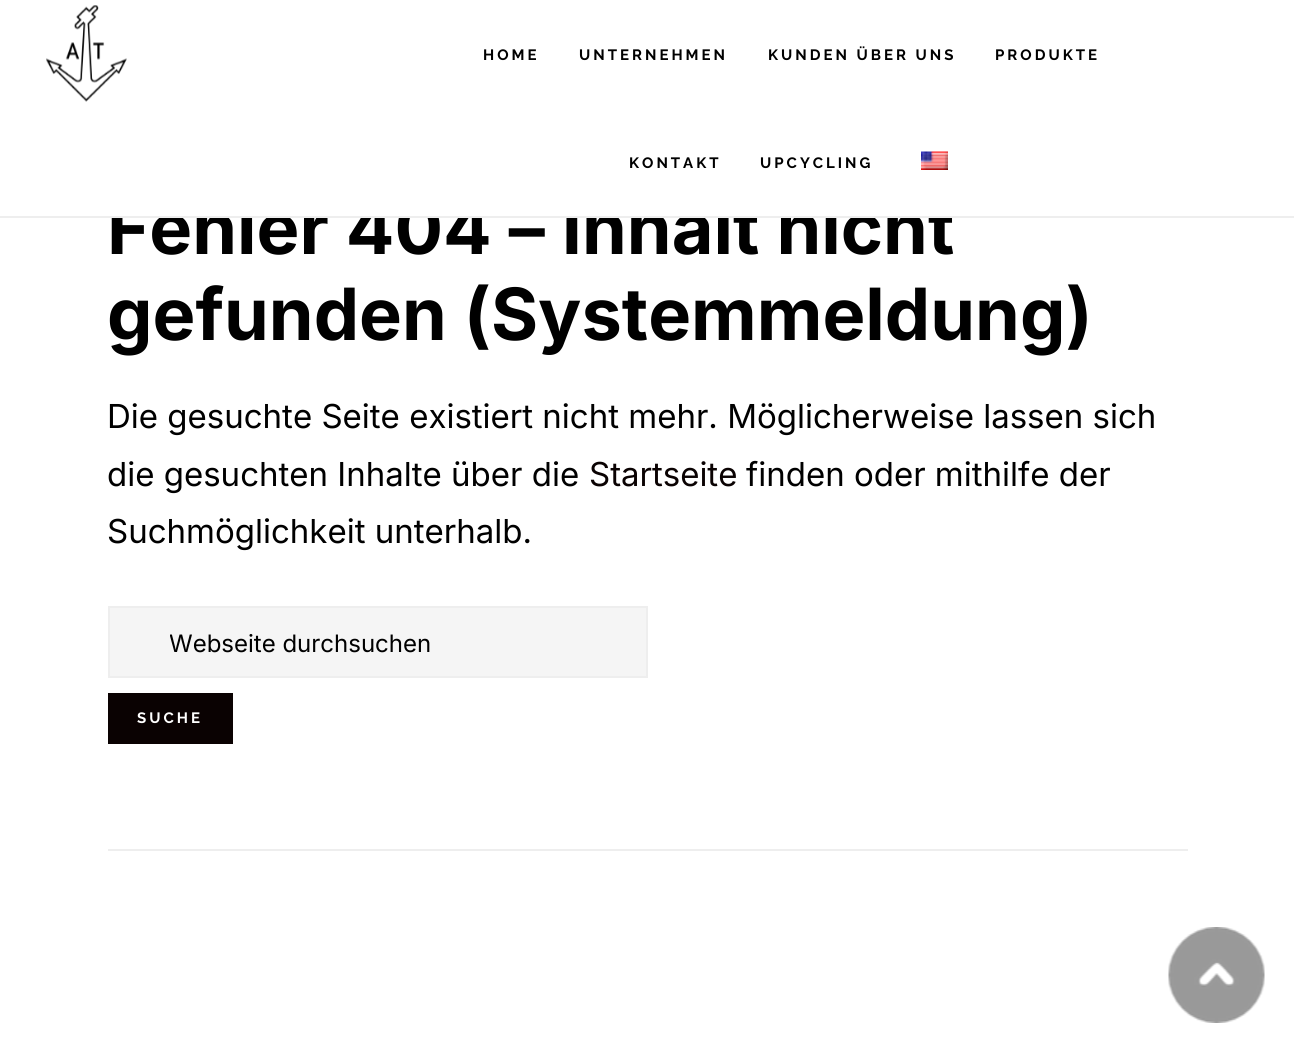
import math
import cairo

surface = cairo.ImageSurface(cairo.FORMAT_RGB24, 1294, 1052)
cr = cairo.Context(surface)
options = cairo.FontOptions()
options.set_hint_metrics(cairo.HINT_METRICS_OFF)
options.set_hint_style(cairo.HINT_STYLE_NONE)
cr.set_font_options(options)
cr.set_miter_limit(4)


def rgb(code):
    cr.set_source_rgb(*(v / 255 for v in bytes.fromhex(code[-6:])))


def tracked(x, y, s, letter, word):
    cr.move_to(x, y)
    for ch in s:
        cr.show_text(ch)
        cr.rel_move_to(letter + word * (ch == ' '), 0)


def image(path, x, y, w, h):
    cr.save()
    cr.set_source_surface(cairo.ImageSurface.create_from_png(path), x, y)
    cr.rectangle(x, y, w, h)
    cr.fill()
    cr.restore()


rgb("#ffffff")
cr.paint()
image("img/1.png", 46, 5, 81, 97)
image("img/2.png", 921, 151, 27, 19)
rgb("#eeeeee")
cr.rectangle(108, 849, 1080, 2)
cr.fill()
rgb("#f5f5f5")
cr.rectangle(109, 607, 538, 70)
cr.fill_preserve()
rgb("#eeeeee")
cr.stroke()
rgb("#0a0202")
cr.rectangle(108, 693, 125, 51)
cr.fill()
image("img/3.png", 1168, 927, 97, 96)
cr.select_font_face("Raleway Thin")
cr.set_font_size(15)
rgb("#000000")
for x, y, s in [
    (483, 60, "HOME"),
    (579, 60, "UNTERNEHMEN"),
    (768, 60, "KUNDEN ÜBER UNS"),
    (995, 60, "PRODUKTE"),
    (629, 168, "KONTAKT"),
    (760, 168, "UPCYCLING"),
]:
    tracked(x, y, s, 3, 0)
cr.select_font_face("Inter", cairo.FONT_SLANT_NORMAL, cairo.FONT_WEIGHT_BOLD)
cr.set_font_size(72)
cr.move_to(107, 254)
cr.show_text("Fehler 404 – Inhalt nicht")
rgb("#eeeeee")
cr.rectangle(0, 216, 1294, 2)
cr.fill()
rgb("#ffffff")
cr.rectangle(111, 198, 842, 18)
cr.fill()
rgb("#000000")
cr.move_to(107, 340)
cr.show_text("gefunden (Systemmeldung)")
cr.select_font_face("Inter")
cr.set_font_size(33)
cr.move_to(107, 428)
cr.show_text("Die gesuchte Seite existiert nicht mehr. Möglicherweise lassen sich")
cr.move_to(107, 486)
cr.show_text("die gesuchten Inhalte über die")
rgb("#0a0202")
cr.move_to(589, 486)
cr.show_text("Startseite")
rgb("#000000")
cr.move_to(746, 486)
cr.show_text("finden oder mithilfe der")
cr.move_to(107, 543)
cr.show_text("Suchmöglichkeit unterhalb.")
cr.save()
cr.rectangle(170, 629, 447, 30)
cr.clip()
cr.set_font_size(24)
cr.move_to(169, 652)
cr.show_text("Webseite durchsuchen")
cr.restore()
cr.select_font_face("Raleway Thin")
cr.set_font_size(15)
rgb("#ffffff")
tracked(137, 723, "SUCHE", 3, 0)
surface.write_to_png("page.png")
